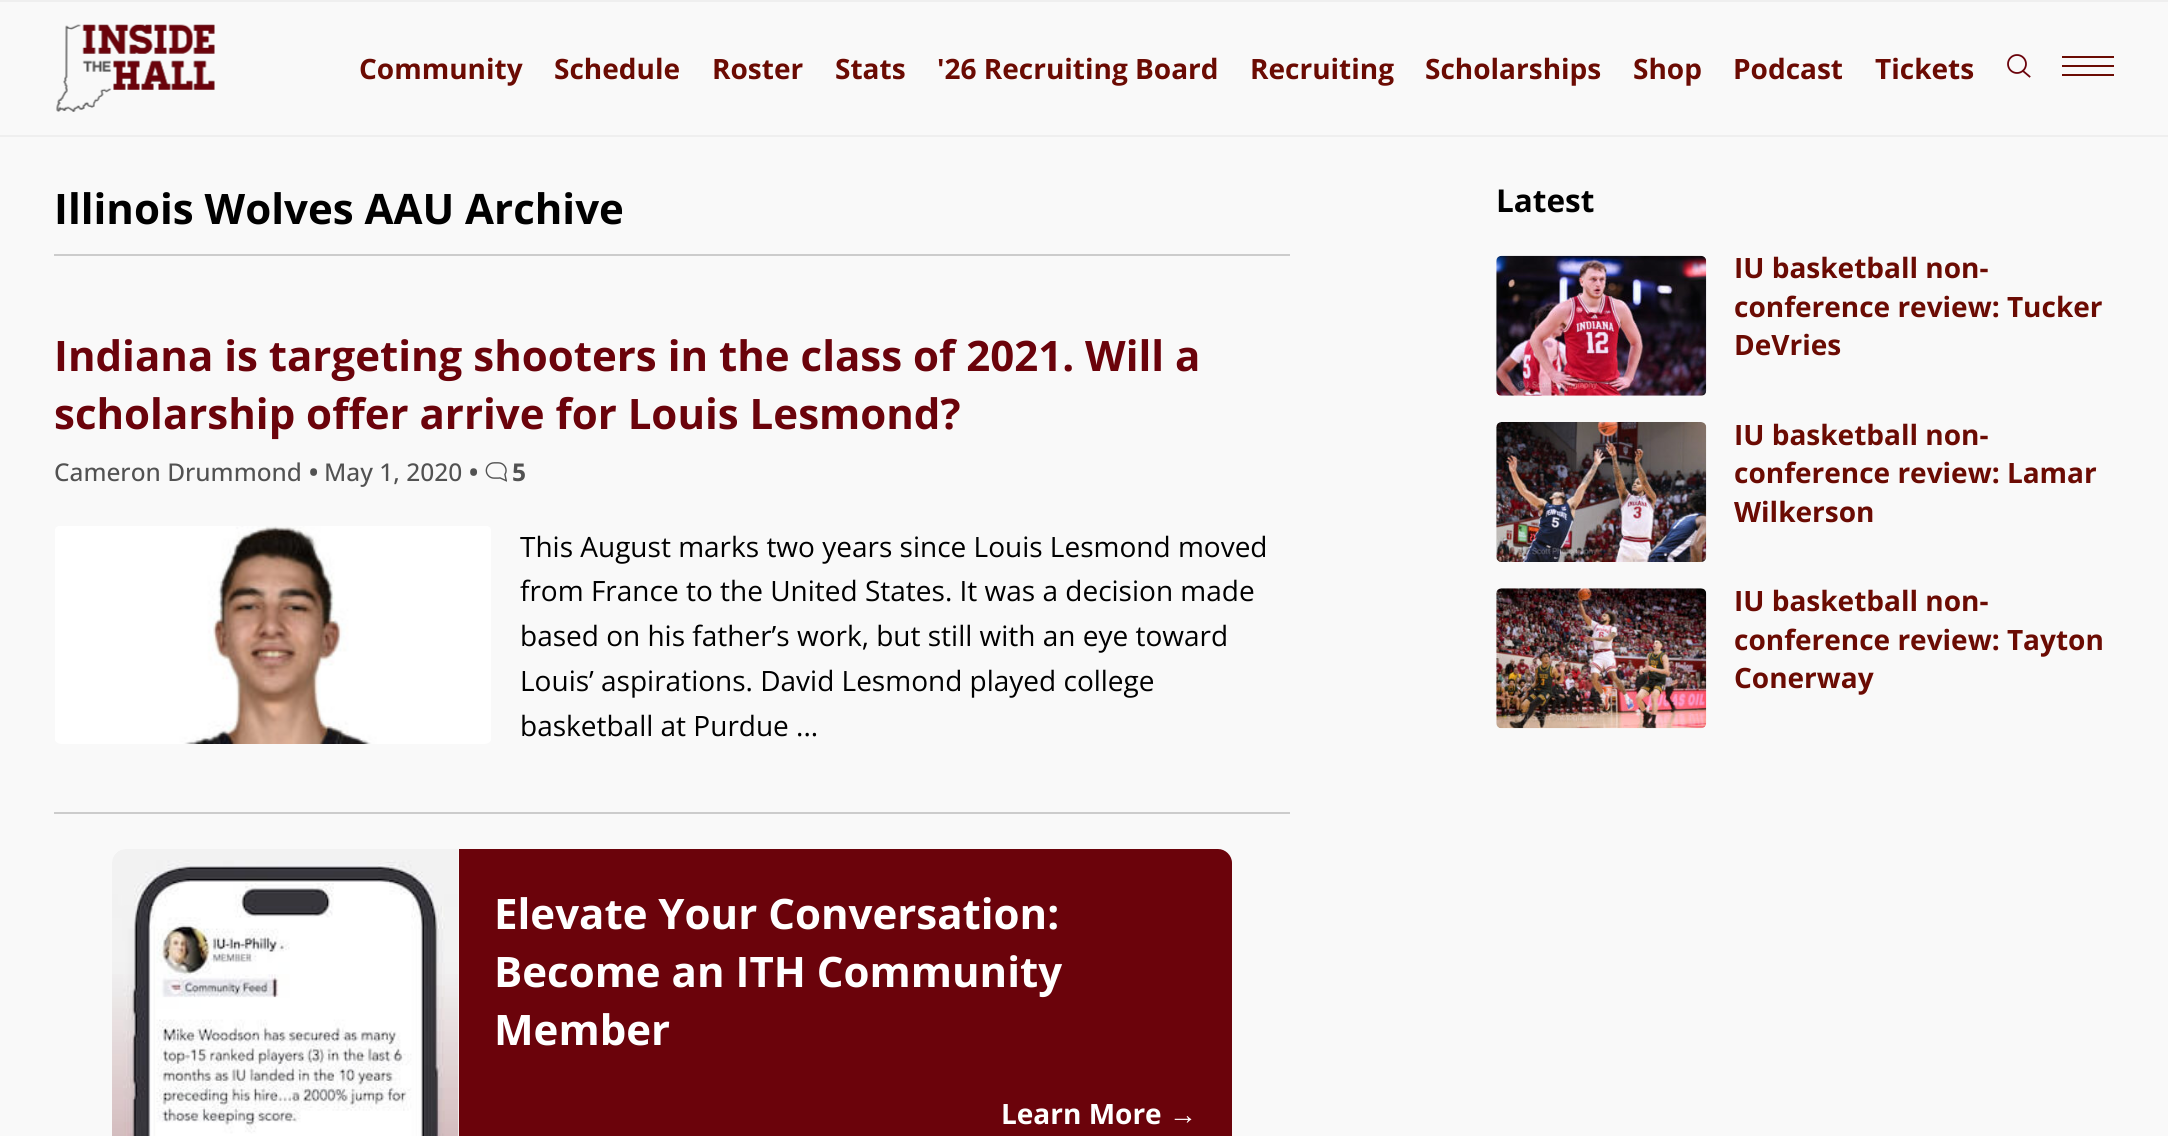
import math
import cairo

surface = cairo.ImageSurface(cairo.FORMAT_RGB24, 2168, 1136)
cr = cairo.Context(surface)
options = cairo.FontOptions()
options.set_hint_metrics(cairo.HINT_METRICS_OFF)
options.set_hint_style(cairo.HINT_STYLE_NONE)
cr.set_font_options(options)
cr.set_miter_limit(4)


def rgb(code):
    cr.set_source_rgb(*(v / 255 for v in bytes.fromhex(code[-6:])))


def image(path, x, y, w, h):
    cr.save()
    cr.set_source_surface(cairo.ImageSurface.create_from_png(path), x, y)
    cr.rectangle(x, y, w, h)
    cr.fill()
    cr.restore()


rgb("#f9f9f9")
cr.paint()
rgb("#efefef")
cr.rectangle(0, 0, 2168, 2)
cr.fill()
cr.rectangle(0, 135, 2168, 2)
cr.fill()
image("img/1.png", 56, 24, 159, 88)
cr.arc(2017, 64, 9, 0, 2 * math.pi)
rgb("#6b030b")
cr.set_line_width(1.8)
cr.stroke()
cr.new_path()
cr.move_to(2023, 71)
cr.line_to(2029.5, 76.5)
cr.set_line_cap(cairo.LINE_CAP_SQUARE)
cr.stroke()
for x, y, w, h, color in [
    (2062, 56, 52, 2, "#6b0b03"),
    (2062, 65, 52, 2, "#6b0b03"),
    (2062, 74, 52, 2, "#6b0b03"),
    (54, 254, 1236, 2, "#cccccc"),
    (54, 812, 1236, 2, "#cccccc"),
]:
    rgb(color)
    cr.rectangle(x, y, w, h)
    cr.fill()
image("img/2.png", 485, 462, 22, 20)
image("img/3.png", 55, 526, 436, 218)
image("img/4.png", 112, 849, 347, 287)
rgb("#6b030b")
cr.new_path()
cr.move_to(459, 849)
cr.line_to(1218, 849)
cr.curve_to(1225.5, 849, 1232, 855.5, 1232, 863)
cr.line_to(1232, 1136)
cr.curve_to(1232, 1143.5, 1225.5, 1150, 1218, 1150)
cr.line_to(459, 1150)
cr.close_path()
cr.fill()
image("img/5.png", 1496, 255, 211, 141)
image("img/6.png", 1496, 422, 211, 140)
image("img/7.png", 1496, 588, 211, 141)
cr.select_font_face("Open Sans", cairo.FONT_SLANT_NORMAL, cairo.FONT_WEIGHT_BOLD)
cr.set_font_size(28)
rgb("#6b0b03")
for x, y, s in [
    (359, 79, "Community"),
    (554, 79, "Schedule"),
    (712, 79, "Roster"),
    (835, 79, "Stats"),
    (937, 79, "'26 Recruiting Board"),
    (1250, 79, "Recruiting"),
    (1425, 79, "Scholarships"),
    (1633, 79, "Shop"),
    (1733, 79, "Podcast"),
    (1875, 79, "Tickets"),
]:
    cr.move_to(x, y)
    cr.show_text(s)
cr.set_font_size(42)
rgb("#000000")
cr.move_to(54, 224)
cr.show_text("Illinois Wolves AAU Archive")
rgb("#6b030b")
cr.move_to(54, 371)
cr.show_text("Indiana is targeting shooters in the class of 2021. Will a")
cr.move_to(54, 429)
cr.show_text("scholarship offer arrive for Louis Lesmond?")
cr.select_font_face("Open Sans Medium")
cr.set_font_size(24.5)
rgb("#525252")
cr.move_to(54, 481)
cr.show_text("Cameron Drummond")
cr.select_font_face("Open Sans", cairo.FONT_SLANT_NORMAL, cairo.FONT_WEIGHT_BOLD)
cr.move_to(309, 481)
cr.show_text("•")
cr.select_font_face("Open Sans Medium")
cr.move_to(324, 481)
cr.show_text("May 1, 2020")
cr.select_font_face("Open Sans", cairo.FONT_SLANT_NORMAL, cairo.FONT_WEIGHT_BOLD)
cr.move_to(469, 481)
cr.show_text("•")
cr.move_to(512, 481)
cr.show_text("5")
cr.select_font_face("Open Sans")
cr.set_font_size(28)
rgb("#000000")
for x, y, s in [
    (520, 557, "This August marks two years since Louis Lesmond moved"),
    (520, 601, "from France to the United States. It was a decision made"),
    (520, 646, "based on his father’s work, but still with an eye toward"),
    (520, 691, "Louis’ aspirations. David Lesmond played college"),
    (520, 736, "basketball at Purdue ..."),
]:
    cr.move_to(x, y)
    cr.show_text(s)
cr.select_font_face("Open Sans", cairo.FONT_SLANT_NORMAL, cairo.FONT_WEIGHT_BOLD)
cr.set_font_size(42)
rgb("#ffffff")
for x, y, s in [
    (494, 929, "Elevate Your Conversation:"),
    (494, 987, "Become an ITH Community"),
    (494, 1045, "Member"),
]:
    cr.move_to(x, y)
    cr.show_text(s)
cr.set_font_size(28)
cr.move_to(1001, 1124)
cr.show_text("Learn More")
cr.select_font_face("Liberation Sans", cairo.FONT_SLANT_NORMAL, cairo.FONT_WEIGHT_BOLD)
cr.move_to(1169, 1124)
cr.show_text("→")
cr.select_font_face("Open Sans", cairo.FONT_SLANT_NORMAL, cairo.FONT_WEIGHT_BOLD)
cr.set_font_size(31.5)
rgb("#000000")
cr.move_to(1496, 212)
cr.show_text("Latest")
cr.set_font_size(28)
rgb("#6b0b03")
for x, y, s in [
    (1734, 278, "IU basketball non-"),
    (1734, 317, "conference review: Tucker"),
    (1734, 355, "DeVries"),
    (1734, 445, "IU basketball non-"),
    (1734, 483, "conference review: Lamar"),
    (1734, 522, "Wilkerson"),
    (1734, 611, "IU basketball non-"),
    (1734, 650, "conference review: Tayton"),
    (1734, 688, "Conerway"),
]:
    cr.move_to(x, y)
    cr.show_text(s)
surface.write_to_png("page.png")
